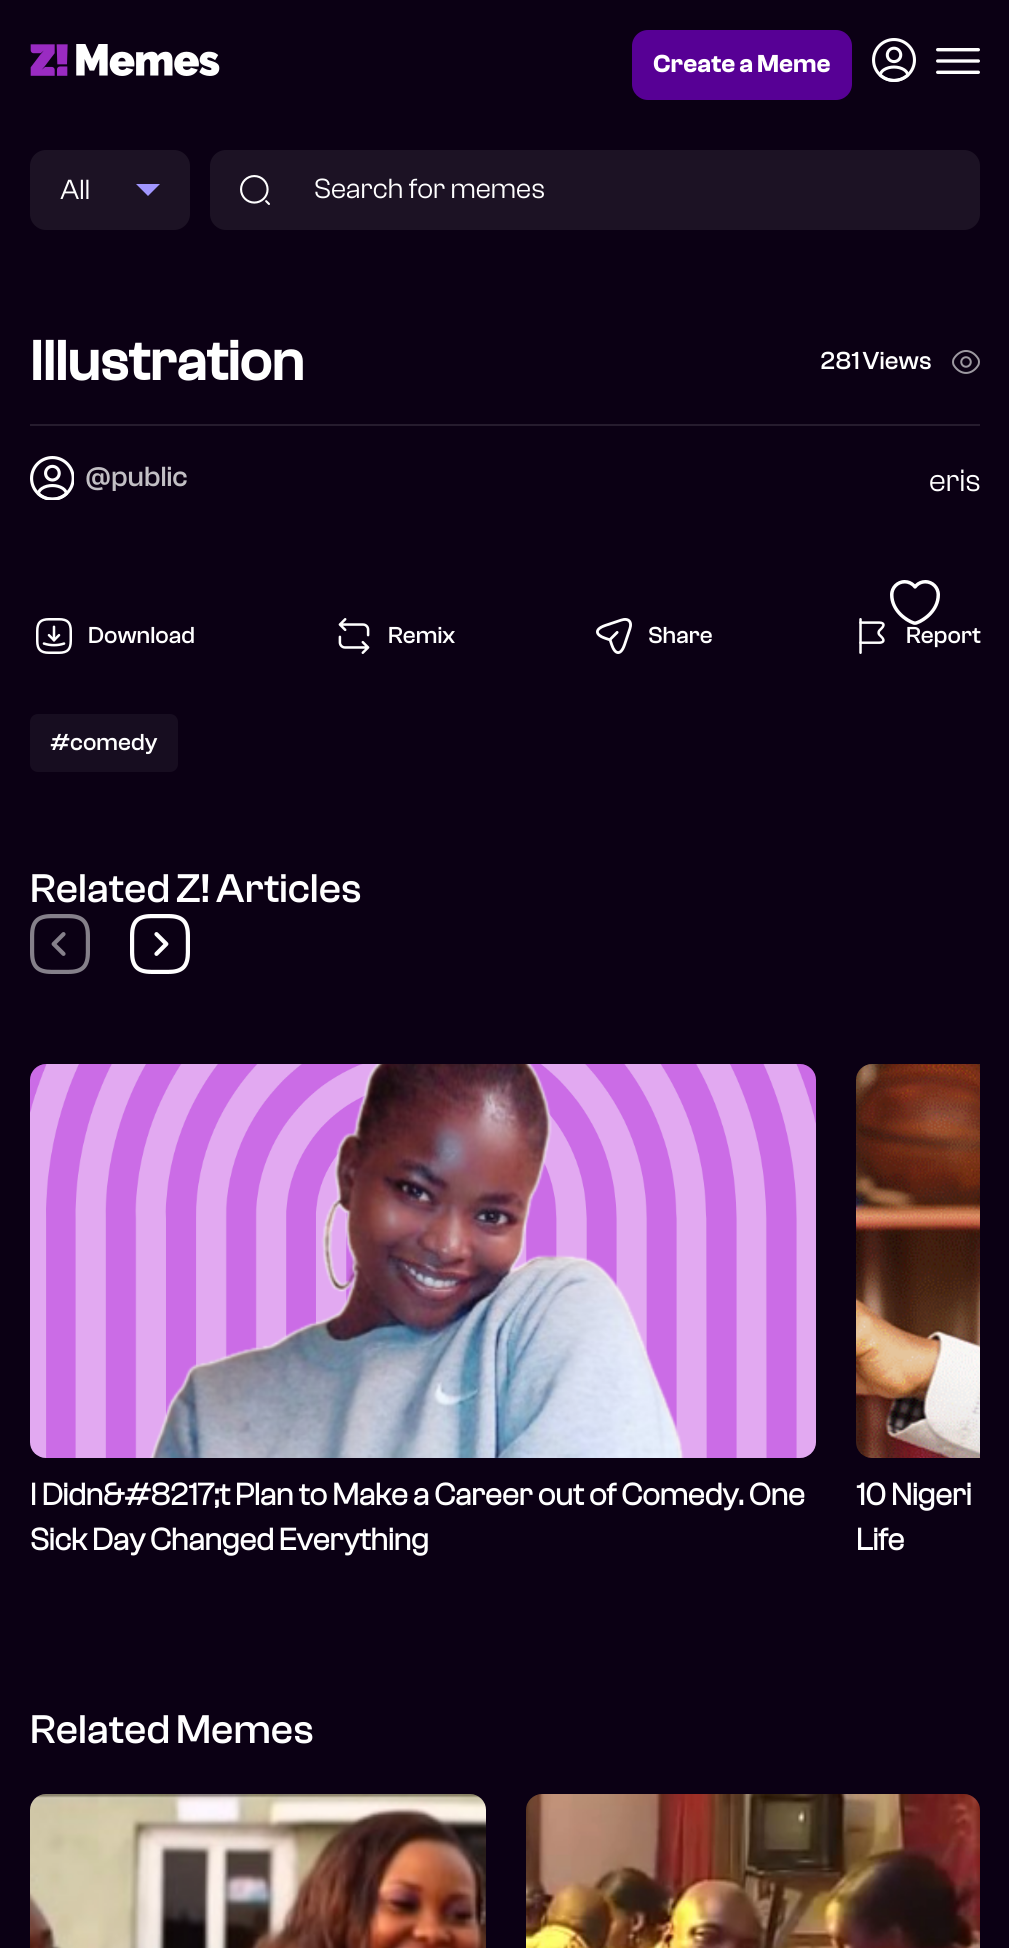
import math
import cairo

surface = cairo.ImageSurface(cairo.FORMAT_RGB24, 1009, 1948)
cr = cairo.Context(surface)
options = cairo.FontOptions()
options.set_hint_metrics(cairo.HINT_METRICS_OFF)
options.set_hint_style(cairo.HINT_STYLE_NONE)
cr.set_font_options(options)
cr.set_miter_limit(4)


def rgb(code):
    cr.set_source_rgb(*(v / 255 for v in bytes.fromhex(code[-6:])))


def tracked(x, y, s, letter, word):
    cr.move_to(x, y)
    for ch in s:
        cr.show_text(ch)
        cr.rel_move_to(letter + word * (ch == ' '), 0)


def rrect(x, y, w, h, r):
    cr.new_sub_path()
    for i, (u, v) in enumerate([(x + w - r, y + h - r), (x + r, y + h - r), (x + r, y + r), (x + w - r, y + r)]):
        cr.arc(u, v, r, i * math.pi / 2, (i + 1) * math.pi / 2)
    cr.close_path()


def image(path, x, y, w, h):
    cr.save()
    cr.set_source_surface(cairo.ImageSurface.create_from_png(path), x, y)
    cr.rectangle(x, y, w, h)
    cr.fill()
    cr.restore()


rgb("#0b0014")
cr.paint()
image("img/1.png", 30, 44, 190, 32)
rgb("#570095")
rrect(632, 30, 220, 70, 16)
cr.fill()
image("img/2.png", 872, 38, 44, 44)
image("img/3.png", 936, 48, 44, 26)
rgb("#1c1224")
rrect(30, 150, 160, 80, 16)
cr.fill()
rgb("#a196ff")
cr.new_path()
cr.move_to(136, 184)
cr.line_to(160, 184)
cr.line_to(148, 196)
cr.close_path()
cr.fill()
rgb("#1c1224")
rrect(210, 150, 770, 80, 16)
cr.fill()
image("img/4.png", 240, 175, 30, 30)
rgb("#261c2e")
cr.rectangle(30, 424, 950, 2)
cr.fill()
image("img/5.png", 952, 350, 28, 24)
image("img/6.png", 30, 456, 44, 44)
image("img/7.png", 890, 580, 50, 45)
image("img/8.png", 36, 618, 36, 36)
image("img/9.png", 338, 618, 32, 36)
image("img/10.png", 596, 618, 36, 36)
image("img/11.png", 859, 618, 26, 36)
rgb("#170d20")
rrect(30, 714, 148, 58, 8)
cr.fill()
image("img/12.png", 30, 914, 60, 60)
image("img/13.png", 130, 914, 60, 60)
image("img/14.png", 30, 1064, 786, 394)
image("img/15.png", 856, 1064, 124, 394)
image("img/16.png", 30, 1794, 456, 154)
image("img/17.png", 526, 1794, 454, 154)
cr.select_font_face("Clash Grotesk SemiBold")
cr.set_font_size(25.5)
rgb("#ffffff")
tracked(653, 72, "Create a Meme", 0, -1)
cr.select_font_face("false")
cr.set_font_size(28.75)
cr.move_to(60, 199)
cr.show_text("All")
cr.move_to(314, 198)
cr.show_text("Search for memes")
cr.select_font_face("Clash Grotesk", cairo.FONT_SLANT_NORMAL, cairo.FONT_WEIGHT_BOLD)
cr.set_font_size(57.5)
cr.move_to(30, 380)
cr.show_text("Illustration")
cr.select_font_face("Clash Grotesk Medium")
cr.set_font_size(25.5)
tracked(820, 369, "281 Views", 0, -2)
cr.set_font_size(28.75)
rgb("#c2bfc4")
cr.move_to(85, 486)
cr.show_text("@public")
cr.select_font_face("false")
cr.set_font_size(32)
rgb("#ffffff")
cr.move_to(929, 491)
cr.show_text("eris")
cr.select_font_face("Clash Grotesk Medium")
cr.set_font_size(24)
for x, y, s in [
    (88, 643, "Download"),
    (388, 643, "Remix"),
    (648, 643, "Share"),
    (906, 643, "Report"),
    (50, 750, "#comedy"),
]:
    cr.move_to(x, y)
    cr.show_text(s)
cr.set_font_size(41.5)
tracked(30, 902, "Related Z! Articles", 0, -2)
cr.select_font_face("false", cairo.FONT_SLANT_NORMAL, cairo.FONT_WEIGHT_BOLD)
cr.set_font_size(32)
tracked(30, 1505, "I Didn&#8217;t Plan to Make a Career out of Comedy. One", 0, -0.6)
tracked(30, 1550, "Sick Day Changed Everything", 0, -1)
tracked(856, 1505, "10 Nigeri", 0, -1)
cr.move_to(856, 1550)
cr.show_text("Life")
cr.select_font_face("Clash Grotesk Medium")
cr.set_font_size(41.5)
tracked(30, 1743, "Related Memes", 0, -2)
surface.write_to_png("page.png")
